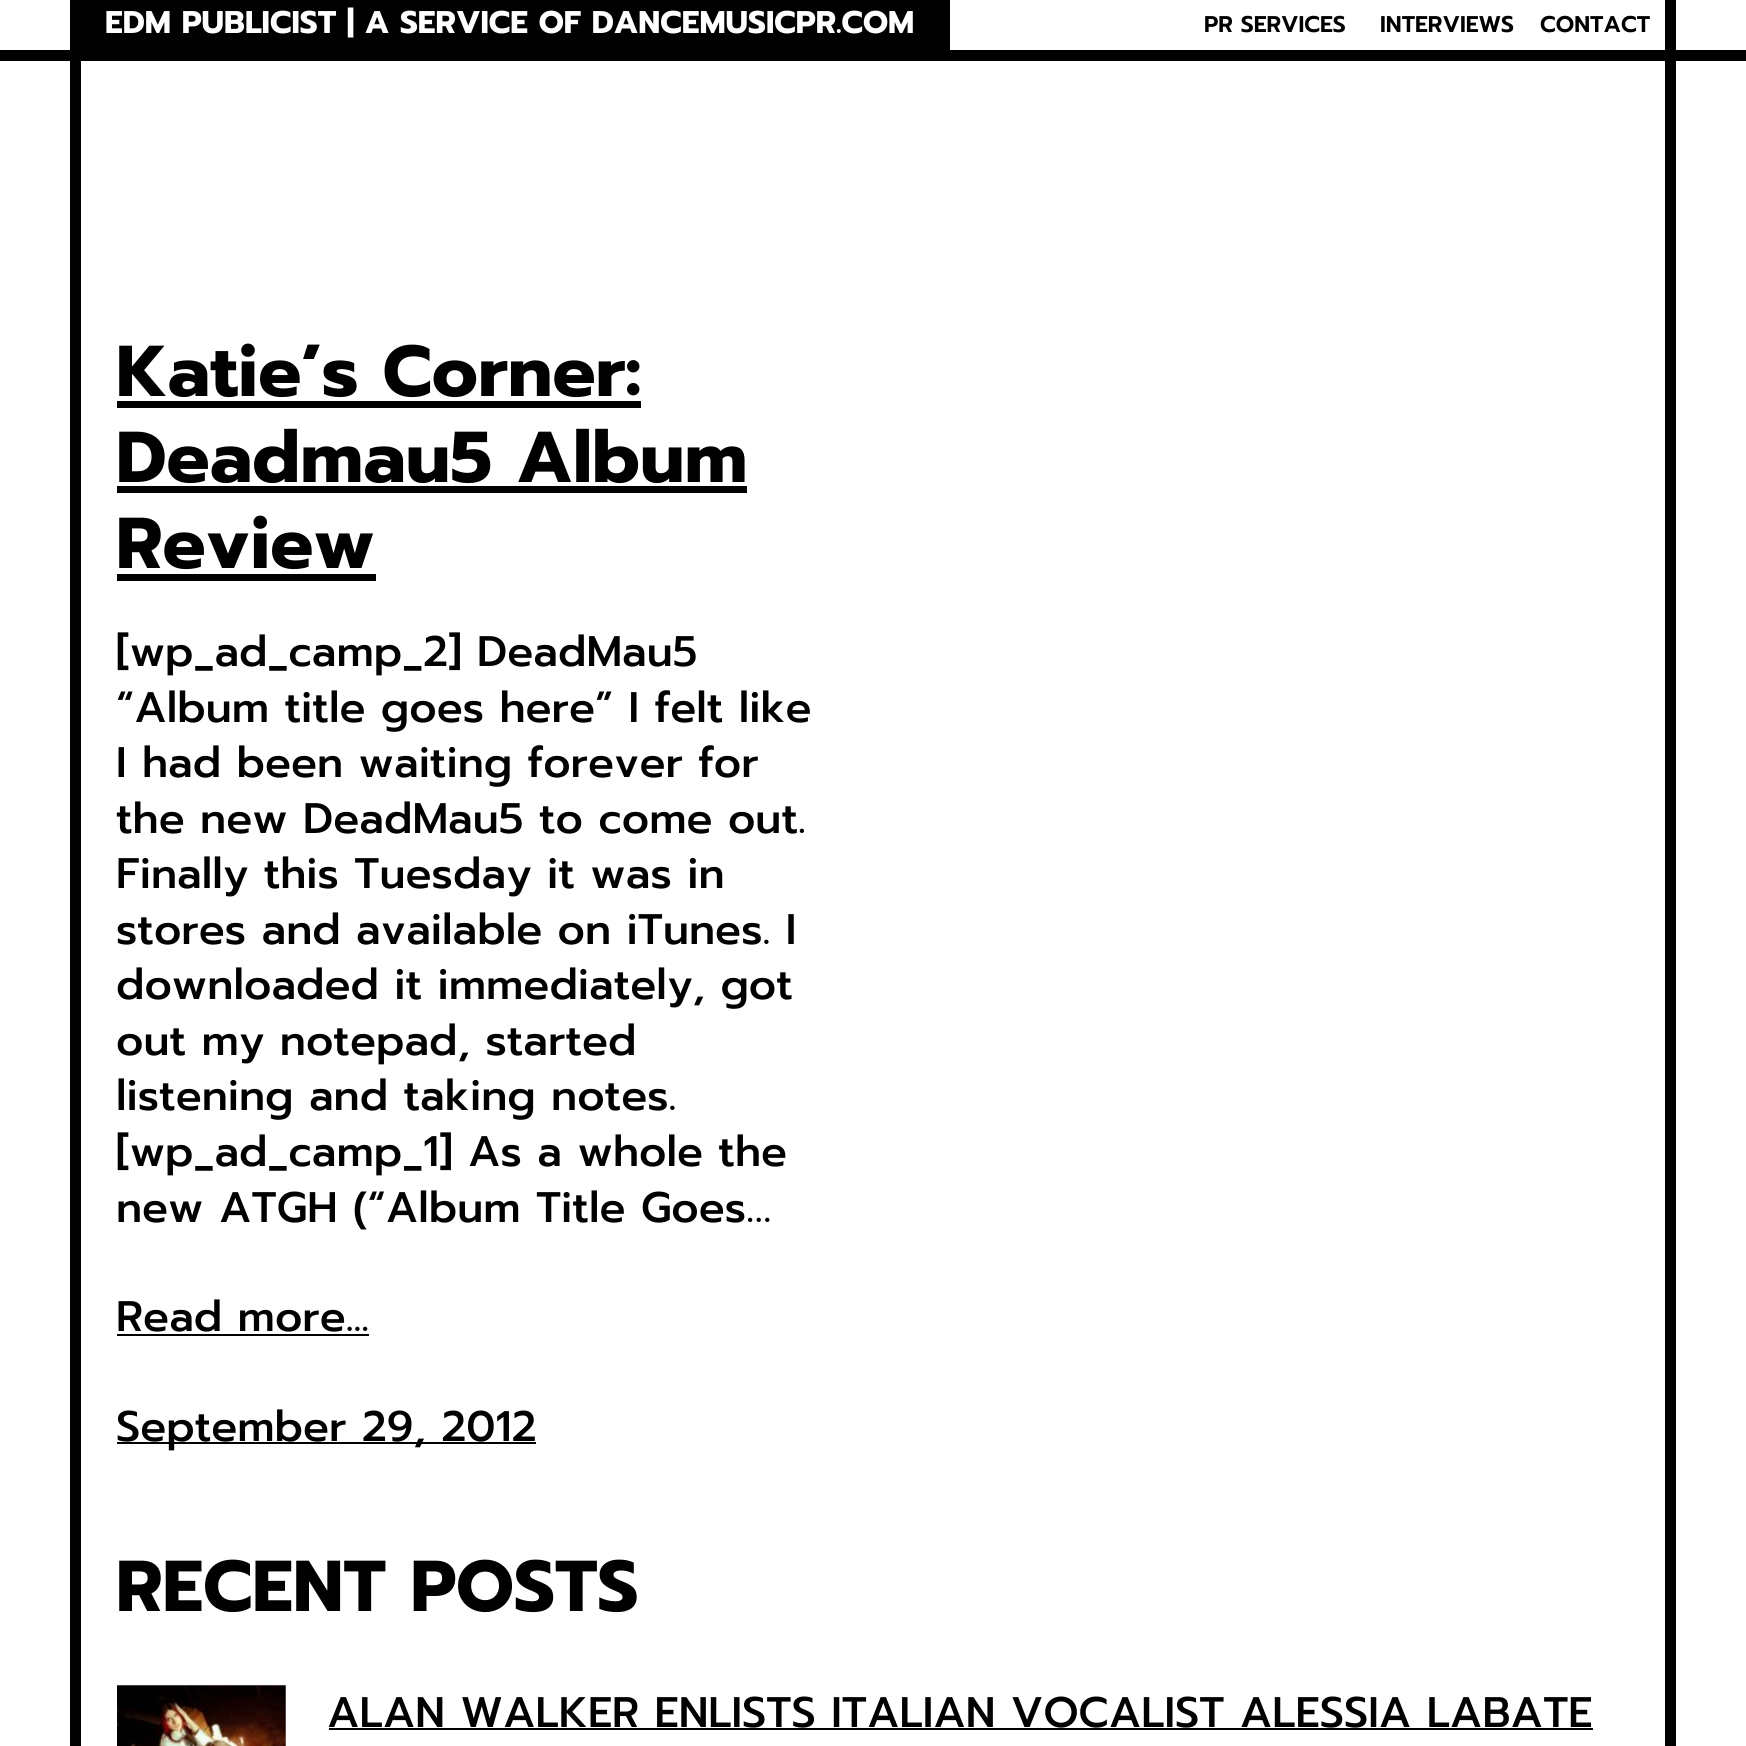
import math
import cairo

surface = cairo.ImageSurface(cairo.FORMAT_RGB24, 1746, 1746)
cr = cairo.Context(surface)
options = cairo.FontOptions()
options.set_hint_metrics(cairo.HINT_METRICS_OFF)
options.set_hint_style(cairo.HINT_STYLE_NONE)
cr.set_font_options(options)
cr.set_miter_limit(4)


def rgb(code):
    cr.set_source_rgb(*(v / 255 for v in bytes.fromhex(code[-6:])))


def image(path, x, y, w, h):
    cr.save()
    cr.set_source_surface(cairo.ImageSurface.create_from_png(path), x, y)
    cr.rectangle(x, y, w, h)
    cr.fill()
    cr.restore()


rgb("#ffffff")
cr.paint()
for x, y, w, h, color in [
    (0, 50, 1746, 11, "#000000"),
    (70, 0, 880, 50, "#000000"),
    (1665, 0, 11, 50, "#000000"),
    (1665, 61, 11, 1685, "#000000"),
    (70, 61, 11, 1685, "#000000"),
    (117, 401, 524, 7, "#000000"),
    (117, 486, 630, 7, "#000000"),
    (117, 574, 259, 7, "#000000"),
    (117, 1334, 252, 2, "#000000"),
    (117, 1442, 419, 2, "#000000"),
]:
    rgb(color)
    cr.rectangle(x, y, w, h)
    cr.fill()
image("img/1.png", 117, 1685, 169, 61)
cr.rectangle(329, 1728, 1264, 2)
cr.fill()
cr.select_font_face("Prompt", cairo.FONT_SLANT_NORMAL, cairo.FONT_WEIGHT_BOLD)
cr.set_font_size(31.4)
rgb("#ffffff")
cr.move_to(105, 33)
cr.show_text("EDM PUBLICIST | A SERVICE OF DANCEMUSICPR.COM")
cr.select_font_face("Prompt SemiBold")
cr.set_font_size(22.75)
rgb("#000000")
for x, y, s in [
    (1204, 32, "PR SERVICES"),
    (1380, 32, "INTERVIEWS"),
    (1540, 32, "CONTACT"),
]:
    cr.move_to(x, y)
    cr.show_text(s)
cr.select_font_face("Prompt", cairo.FONT_SLANT_NORMAL, cairo.FONT_WEIGHT_BOLD)
cr.set_font_size(72)
for x, y, s in [
    (116, 396, "Katie’s Corner:"),
    (116, 482, "Deadmau5 Album"),
    (116, 568, "Review"),
]:
    cr.move_to(x, y)
    cr.show_text(s)
cr.select_font_face("Prompt Medium")
cr.set_font_size(42.75)
for x, y, s in [
    (116, 666, "[wp_ad_camp_2] DeadMau5"),
    (116, 722, "“Album title goes here” I felt like"),
    (116, 777, "I had been waiting forever for"),
    (116, 833, "the new DeadMau5 to come out."),
    (116, 888, "Finally this Tuesday it was in"),
    (116, 944, "stores and available on iTunes. I"),
    (116, 999, "downloaded it immediately, got"),
    (116, 1055, "out my notepad, started"),
    (116, 1110, "listening and taking notes."),
    (116, 1166, "[wp_ad_camp_1] As a whole the"),
    (116, 1222, "new ATGH (“Album Title Goes…"),
    (116, 1331, "Read more..."),
    (116, 1441, "September 29, 2012"),
]:
    cr.move_to(x, y)
    cr.show_text(s)
cr.select_font_face("Prompt", cairo.FONT_SLANT_NORMAL, cairo.FONT_WEIGHT_BOLD)
cr.set_font_size(72)
cr.move_to(116, 1611)
cr.show_text("RECENT POSTS")
cr.select_font_face("Prompt Medium")
cr.set_font_size(42.75)
cr.move_to(327, 1727)
cr.show_text("ALAN WALKER ENLISTS ITALIAN VOCALIST ALESSIA LABATE")
surface.write_to_png("page.png")
